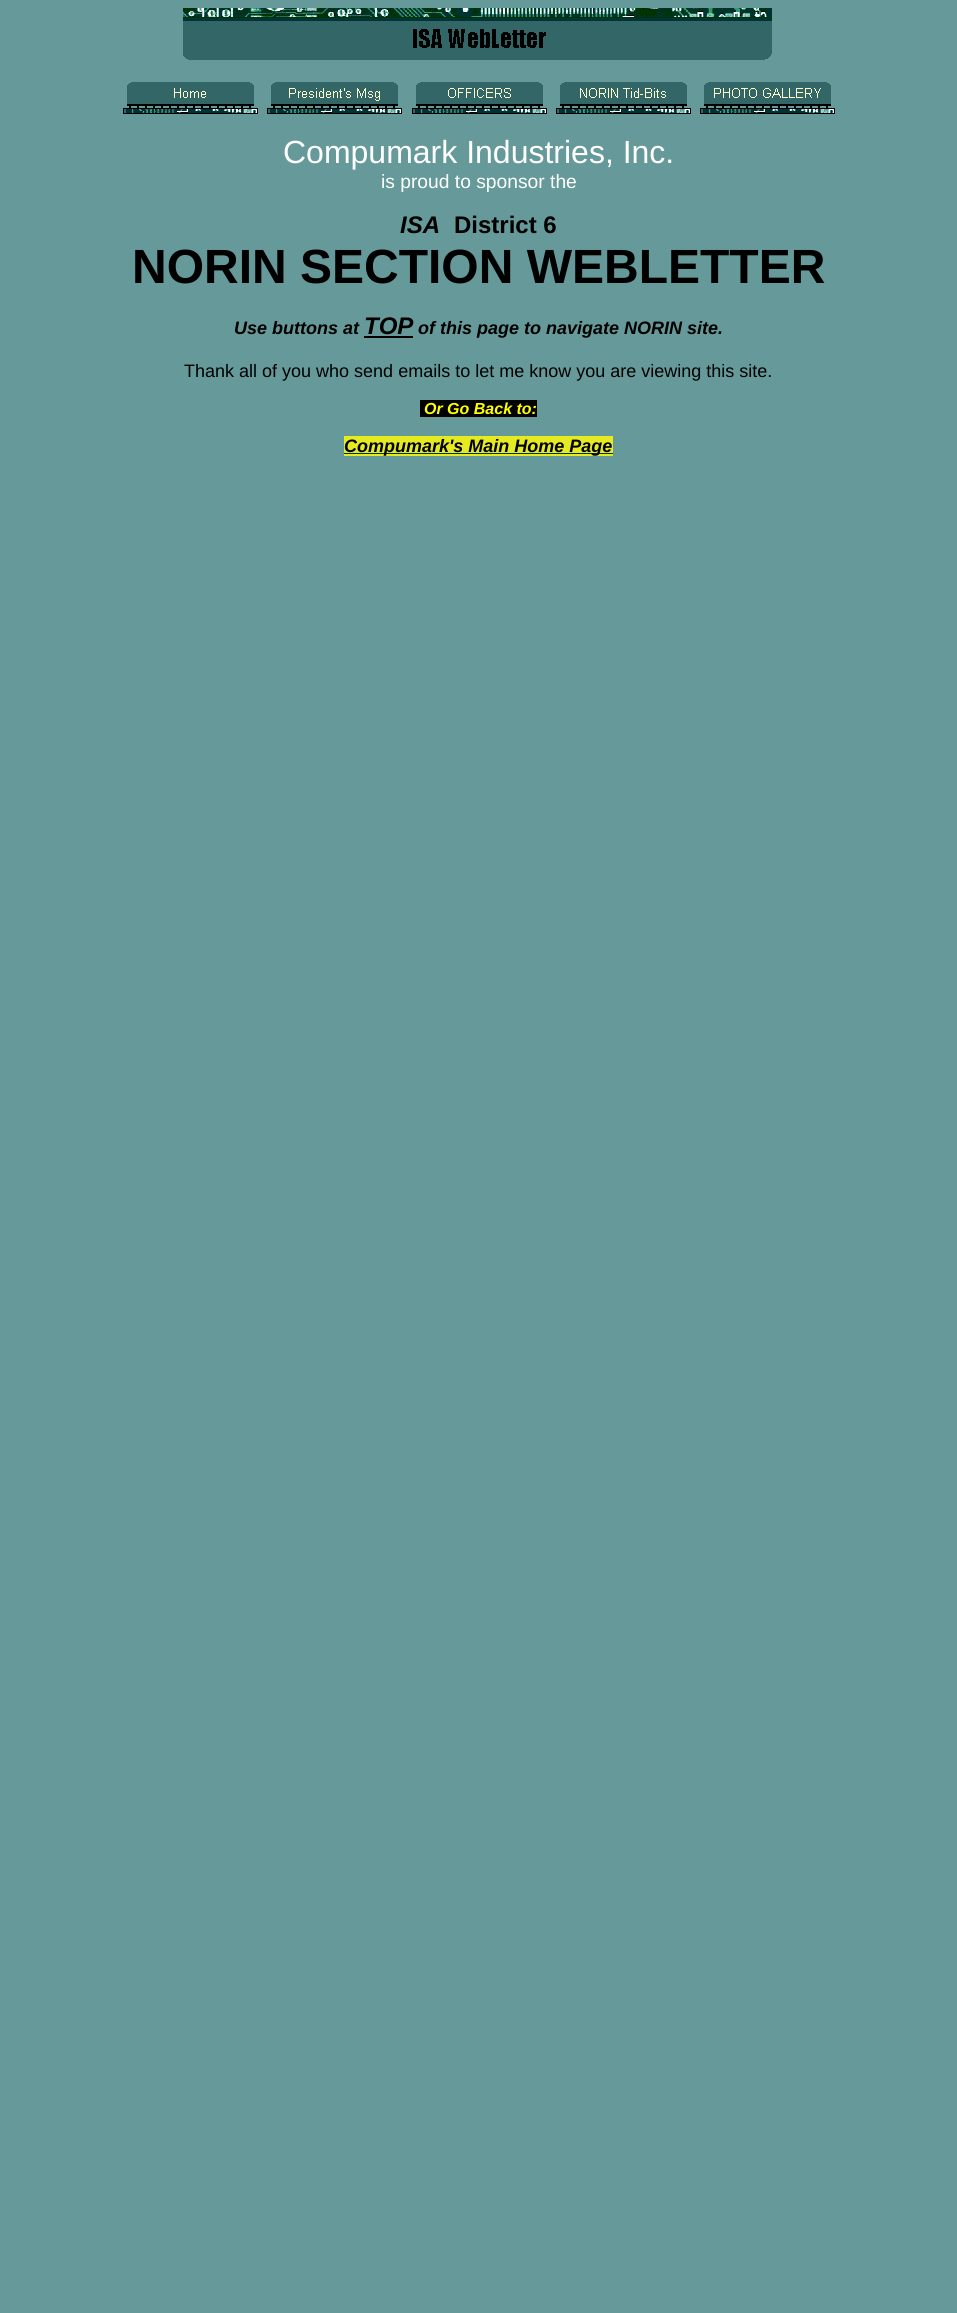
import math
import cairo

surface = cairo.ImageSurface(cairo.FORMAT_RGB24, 957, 2313)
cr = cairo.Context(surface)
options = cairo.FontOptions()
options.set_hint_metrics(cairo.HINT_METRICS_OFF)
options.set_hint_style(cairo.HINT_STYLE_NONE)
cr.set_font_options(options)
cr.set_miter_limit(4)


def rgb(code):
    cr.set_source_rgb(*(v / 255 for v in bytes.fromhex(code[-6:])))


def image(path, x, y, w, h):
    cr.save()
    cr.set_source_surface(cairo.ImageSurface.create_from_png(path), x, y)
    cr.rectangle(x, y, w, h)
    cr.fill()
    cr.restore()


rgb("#669999")
cr.paint()
image("img/1.png", 183, 8, 589, 52)
image("img/2.png", 123, 82, 135, 32)
image("img/3.png", 267, 82, 135, 32)
image("img/4.png", 412, 82, 135, 32)
image("img/5.png", 556, 82, 135, 32)
image("img/6.png", 700, 82, 135, 32)
for x, y, w, h, color in [
    (364, 336, 49, 2, "#000000"),
    (420, 400, 117, 17, "#000000"),
    (344, 436, 269, 20, "#e6eb21"),
    (344, 453, 269, 1, "#003333"),
]:
    rgb(color)
    cr.rectangle(x, y, w, h)
    cr.fill()
cr.select_font_face("Liberation Sans")
cr.set_font_size(32)
rgb("#ffffff")
cr.move_to(283, 163)
cr.show_text("Compumark Industries, Inc.")
cr.set_font_size(19.25)
cr.move_to(381, 188)
cr.show_text("is proud to sponsor the")
cr.select_font_face("Liberation Sans", cairo.FONT_SLANT_ITALIC, cairo.FONT_WEIGHT_BOLD)
cr.set_font_size(24)
rgb("#000000")
cr.move_to(400, 233)
cr.show_text("ISA")
cr.select_font_face("Liberation Sans", cairo.FONT_SLANT_NORMAL, cairo.FONT_WEIGHT_BOLD)
cr.move_to(454, 233)
cr.show_text("District 6")
cr.set_font_size(48)
cr.move_to(132, 283)
cr.show_text("NORIN SECTION WEBLETTER")
cr.select_font_face("Liberation Sans", cairo.FONT_SLANT_ITALIC, cairo.FONT_WEIGHT_BOLD)
cr.set_font_size(18)
cr.move_to(234, 334)
cr.show_text("Use buttons at")
cr.set_font_size(24)
cr.move_to(364, 334)
cr.show_text("TOP")
cr.set_font_size(18)
cr.move_to(418, 334)
cr.show_text("of this page to navigate NORIN site.")
cr.select_font_face("Liberation Sans")
cr.move_to(184, 377)
cr.show_text("Thank all of you who send emails to let me know you are viewing this site.")
cr.select_font_face("Liberation Sans", cairo.FONT_SLANT_ITALIC, cairo.FONT_WEIGHT_BOLD)
cr.set_font_size(16)
rgb("#ffff00")
cr.move_to(424, 414)
cr.show_text("Or Go Back to:")
cr.set_font_size(18)
rgb("#000000")
cr.move_to(344, 452)
cr.show_text("Compumark's Main Home Page")
surface.write_to_png("page.png")
